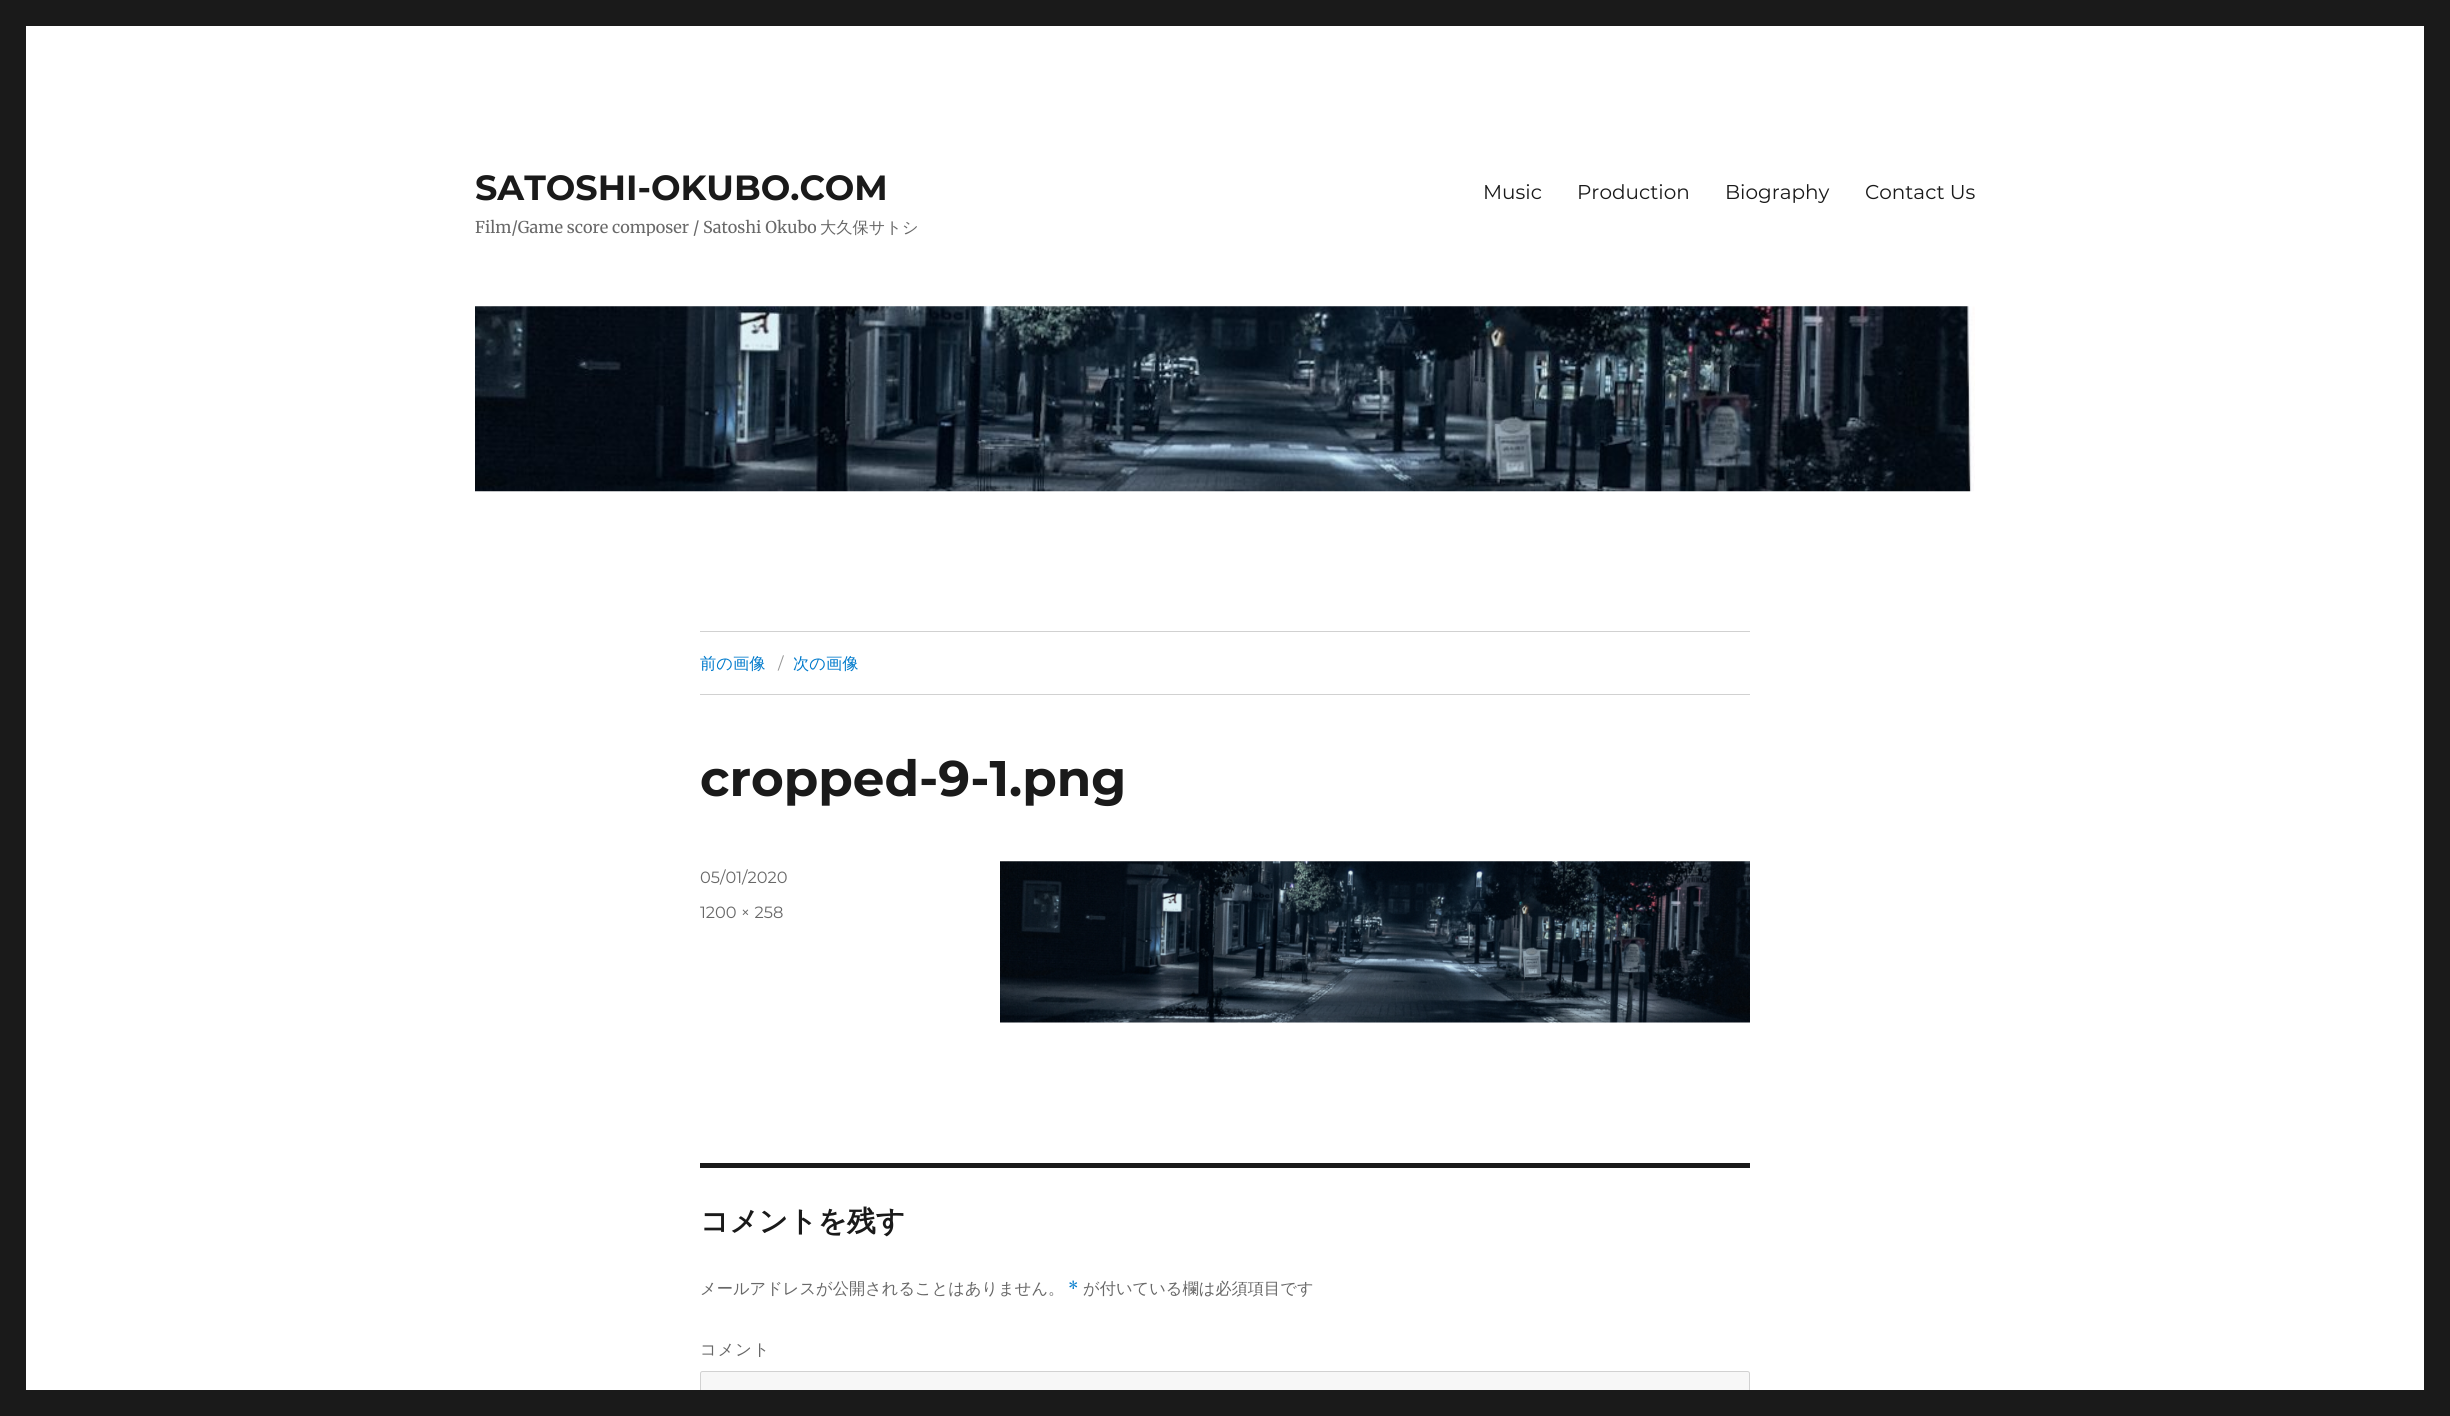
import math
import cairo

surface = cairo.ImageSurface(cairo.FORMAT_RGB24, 2450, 1416)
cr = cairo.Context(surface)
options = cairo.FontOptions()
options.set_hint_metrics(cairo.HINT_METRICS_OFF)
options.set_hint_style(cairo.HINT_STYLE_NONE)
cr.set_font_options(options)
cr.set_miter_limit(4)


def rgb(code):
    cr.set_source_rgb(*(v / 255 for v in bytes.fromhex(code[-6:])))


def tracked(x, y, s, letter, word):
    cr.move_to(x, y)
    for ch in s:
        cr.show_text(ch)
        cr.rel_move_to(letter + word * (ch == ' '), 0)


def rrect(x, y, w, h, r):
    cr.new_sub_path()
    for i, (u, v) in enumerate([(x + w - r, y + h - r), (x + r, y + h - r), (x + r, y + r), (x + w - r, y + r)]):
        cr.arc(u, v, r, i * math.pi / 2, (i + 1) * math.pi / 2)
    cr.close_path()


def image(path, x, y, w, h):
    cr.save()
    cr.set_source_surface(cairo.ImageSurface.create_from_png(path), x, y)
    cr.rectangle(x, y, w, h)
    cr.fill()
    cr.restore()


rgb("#1a1a1a")
cr.paint()
rgb("#ffffff")
cr.rectangle(26, 26, 2398, 1364)
cr.fill()
image("img/1.png", 475, 306, 1500, 186)
rgb("#d1d1d1")
cr.rectangle(700, 631, 1050, 1)
cr.fill()
cr.rectangle(700, 694, 1050, 1)
cr.fill()
image("img/2.png", 1000, 861, 750, 162)
rgb("#1a1a1a")
cr.rectangle(700, 1163, 1050, 5)
cr.fill()
rgb("#f7f7f7")
rrect(700.5, 1371.5, 1049, 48, 2)
cr.fill_preserve()
rgb("#d1d1d1")
cr.set_line_width(1)
cr.stroke()
rgb("#1a1a1a")
cr.rectangle(700, 1390, 1050, 26)
cr.fill()
cr.select_font_face("Montserrat", cairo.FONT_SLANT_NORMAL, cairo.FONT_WEIGHT_BOLD)
cr.set_font_size(35)
cr.move_to(475, 200)
cr.show_text("SATOSHI-OKUBO.COM")
cr.save()
cr.rectangle(475, 166, 444, 70)
cr.clip()
cr.select_font_face("Merriweather")
cr.set_font_size(16.25)
rgb("#686868")
cr.move_to(475, 233)
cr.show_text("Film/Game score composer / Satoshi Okubo")
cr.restore()
cr.select_font_face("WenQuanYi Zen Hei Medium")
cr.set_font_size(16.25)
rgb("#686868")
cr.move_to(820, 233)
cr.show_text("大久保サトシ")
cr.select_font_face("Montserrat")
cr.set_font_size(20)
rgb("#1a1a1a")
for x, y, s in [
    (1483, 199, "Music"),
    (1577, 199, "Production"),
    (1725, 199, "Biography"),
    (1865, 199, "Contact Us"),
]:
    cr.move_to(x, y)
    cr.show_text(s)
cr.select_font_face("WenQuanYi Zen Hei Medium")
cr.set_font_size(16.25)
rgb("#007acc")
cr.move_to(700, 669)
cr.show_text("前の画像")
cr.select_font_face("Montserrat")
rgb("#959595")
cr.move_to(778, 669)
cr.show_text("/")
cr.select_font_face("WenQuanYi Zen Hei Medium")
rgb("#007acc")
cr.move_to(793, 669)
cr.show_text("次の画像")
cr.select_font_face("Montserrat", cairo.FONT_SLANT_NORMAL, cairo.FONT_WEIGHT_BOLD)
cr.set_font_size(50)
rgb("#1a1a1a")
cr.move_to(700, 796)
cr.show_text("cropped-9-1.png")
cr.select_font_face("Montserrat")
cr.set_font_size(16.25)
rgb("#686868")
cr.move_to(700, 883)
cr.show_text("05/01/2020")
cr.move_to(700, 918)
cr.show_text("1200 × 258")
cr.select_font_face("WenQuanYi Zen Hei", cairo.FONT_SLANT_NORMAL, cairo.FONT_WEIGHT_BOLD)
cr.set_font_size(28.75)
rgb("#1a1a1a")
cr.move_to(700, 1231)
cr.show_text("コメントを残す")
cr.select_font_face("WenQuanYi Zen Hei Medium")
cr.set_font_size(16.25)
rgb("#686868")
cr.move_to(700, 1294)
cr.show_text("メールアドレスが公開されることはありません。")
cr.select_font_face("Merriweather")
rgb("#007acc")
cr.move_to(1068, 1294)
cr.show_text("*")
cr.select_font_face("WenQuanYi Zen Hei Medium")
rgb("#686868")
cr.move_to(1083, 1294)
cr.show_text("が付いている欄は必須項目です")
tracked(700, 1355, "コメント", 1, 0)
surface.write_to_png("page.png")
